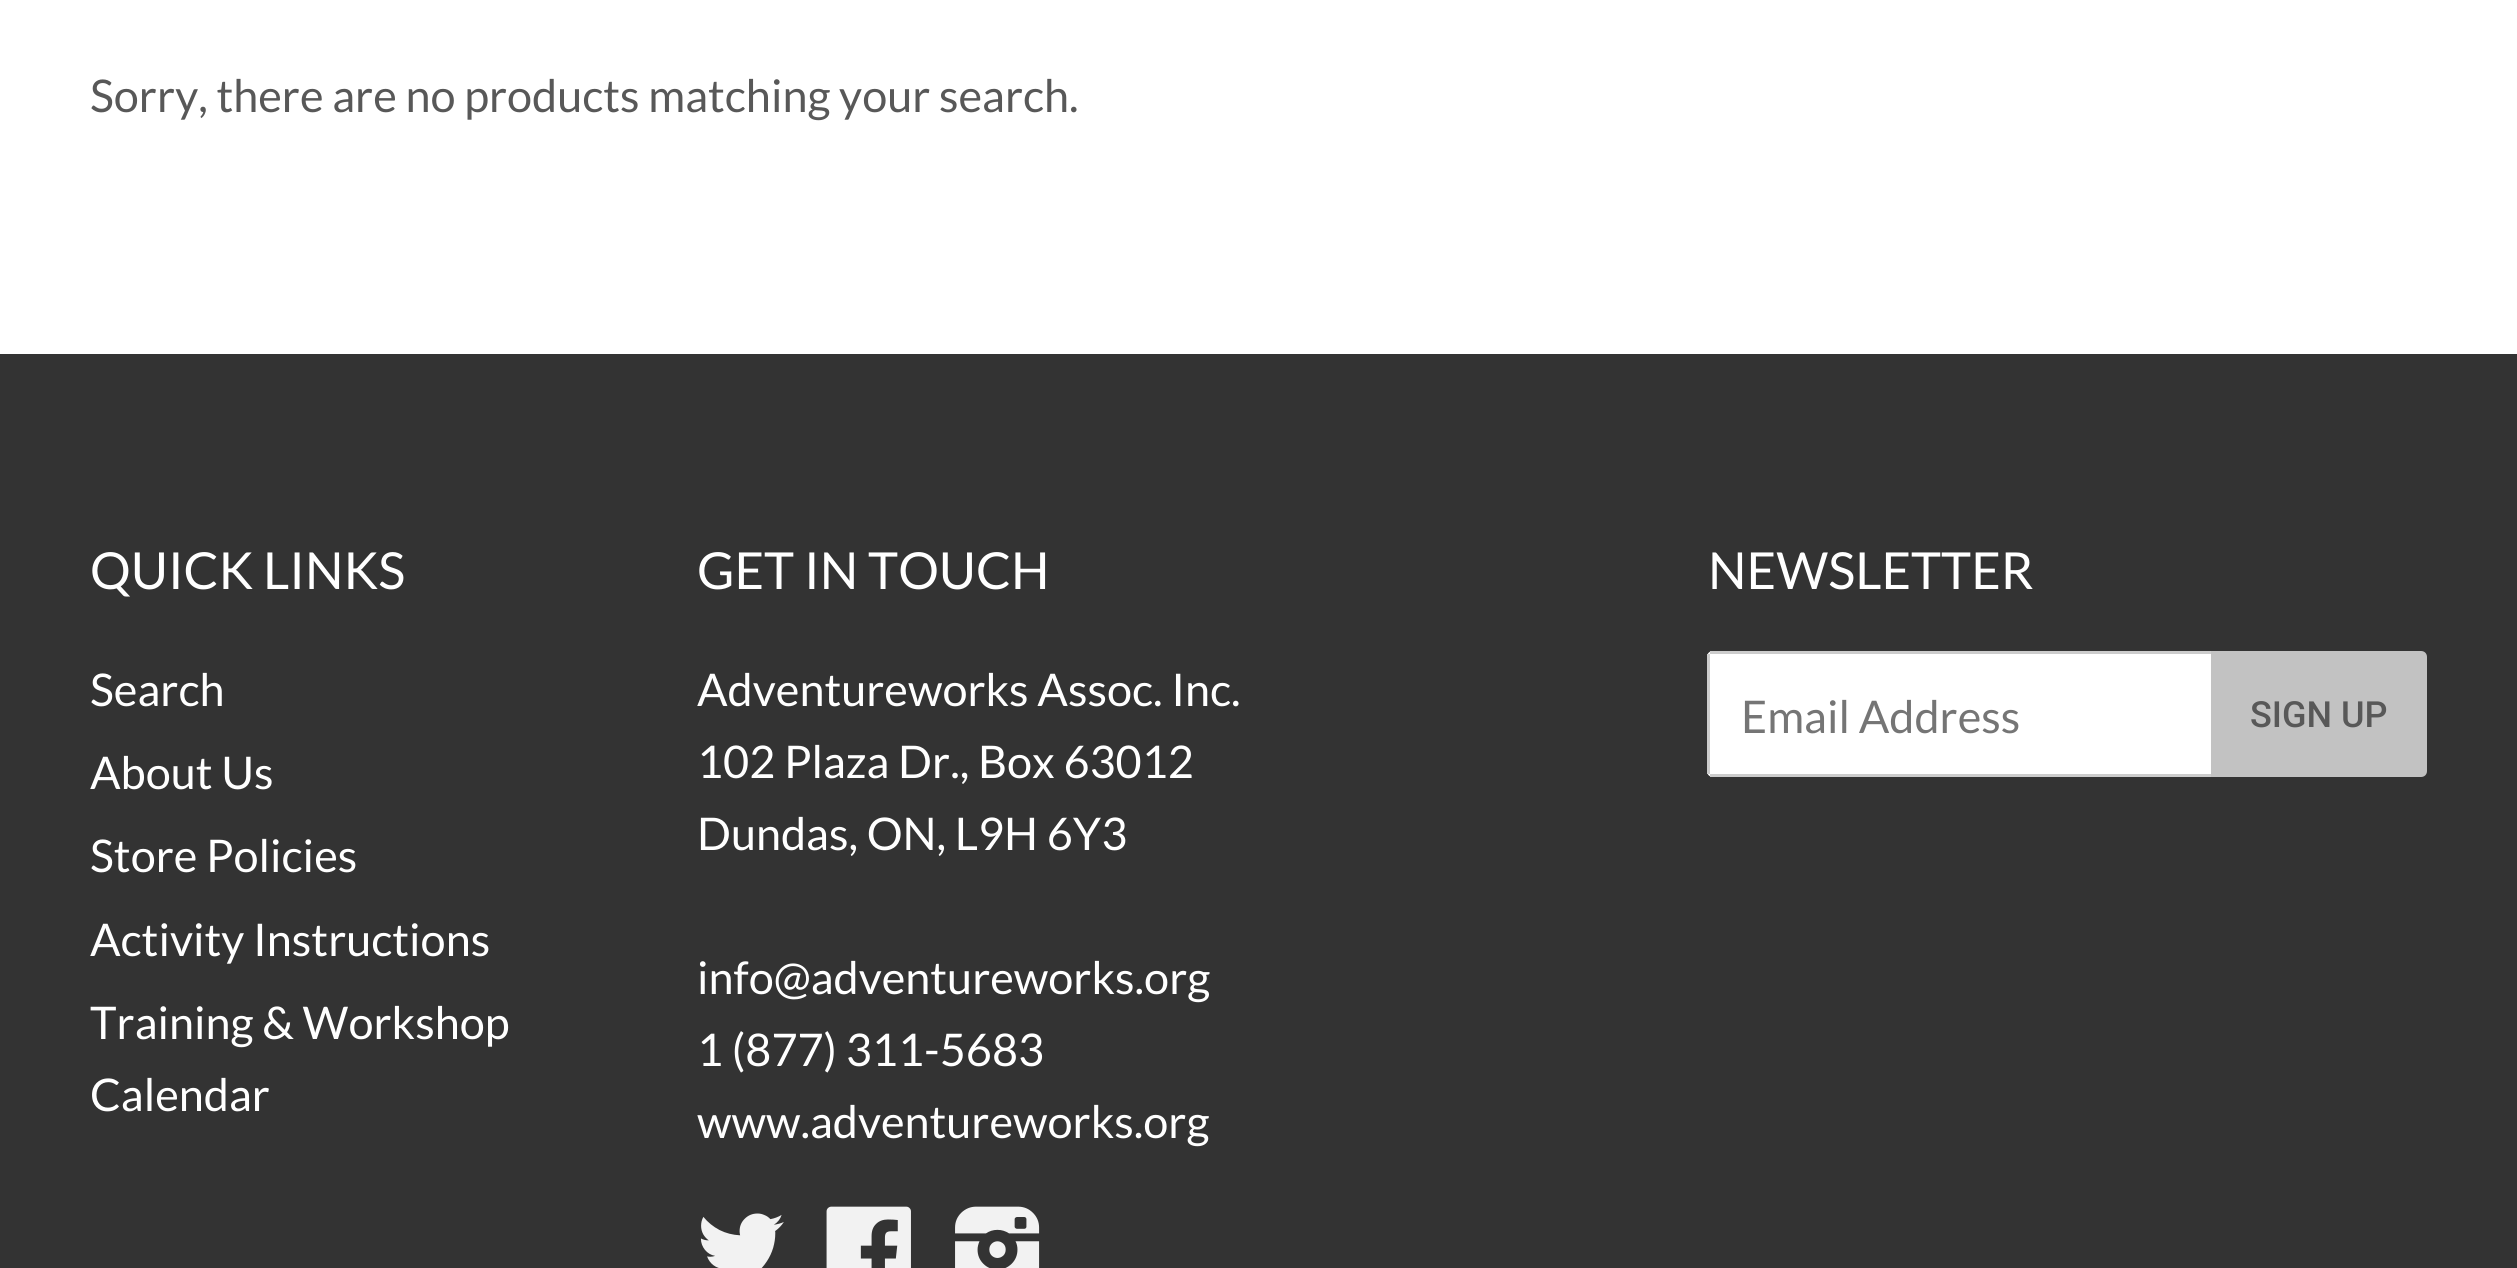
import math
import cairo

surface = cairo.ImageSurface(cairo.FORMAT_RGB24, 2517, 1268)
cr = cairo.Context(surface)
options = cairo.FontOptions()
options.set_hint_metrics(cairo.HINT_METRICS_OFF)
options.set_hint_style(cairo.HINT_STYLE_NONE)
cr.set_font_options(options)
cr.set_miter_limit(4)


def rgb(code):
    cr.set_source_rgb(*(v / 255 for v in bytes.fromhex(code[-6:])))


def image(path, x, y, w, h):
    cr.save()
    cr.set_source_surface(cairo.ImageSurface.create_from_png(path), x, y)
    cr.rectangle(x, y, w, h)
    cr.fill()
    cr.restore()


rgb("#ffffff")
cr.paint()
rgb("#333333")
cr.rectangle(0, 354, 2517, 914)
cr.fill()
image("img/1.png", 700, 1213, 84, 55)
image("img/2.png", 826, 1206, 85, 62)
image("img/3.png", 955, 1206, 85, 62)
rgb("#ffffff")
cr.new_path()
cr.move_to(1713, 651)
cr.line_to(2211, 651)
cr.line_to(2211, 777)
cr.line_to(1713, 777)
cr.curve_to(1709.5, 777, 1707, 774.5, 1707, 771)
cr.line_to(1707, 657)
cr.curve_to(1707, 653.5, 1709.5, 651, 1713, 651)
cr.close_path()
cr.fill()
for x, y, w, h, color in [
    (1710, 651, 501, 3, "#cccccc"),
    (1710, 774, 501, 3, "#cccccc"),
    (1707, 654, 3, 120, "#cccccc"),
]:
    rgb(color)
    cr.rectangle(x, y, w, h)
    cr.fill()
rgb("#c2c2c2")
cr.new_path()
cr.move_to(2211, 651)
cr.line_to(2421, 651)
cr.curve_to(2424.5, 651, 2427, 653.5, 2427, 657)
cr.line_to(2427, 771)
cr.curve_to(2427, 774.5, 2424.5, 777, 2421, 777)
cr.line_to(2211, 777)
cr.close_path()
cr.fill()
cr.select_font_face("Lato")
cr.set_font_size(45)
rgb("#585858")
cr.move_to(90, 112)
cr.show_text("Sorry, there are no products matching your search.")
cr.set_font_size(51)
rgb("#ffffff")
cr.move_to(90, 589)
cr.show_text("QUICK LINKS")
cr.set_font_size(45)
for x, y, s in [
    (90, 706, "Search"),
    (90, 789, "About Us"),
    (90, 872, "Store Policies"),
    (90, 956, "Activity Instructions"),
    (90, 1039, "Training & Workshop"),
    (90, 1111, "Calendar"),
]:
    cr.move_to(x, y)
    cr.show_text(s)
cr.set_font_size(51)
cr.move_to(697, 589)
cr.show_text("GET IN TOUCH")
cr.set_font_size(45)
for x, y, s in [
    (697, 706, "Adventureworks Assoc. Inc."),
    (697, 778, "102 Plaza Dr., Box 63012"),
    (697, 850, "Dundas, ON, L9H 6Y3"),
    (697, 994, "info@adventureworks.org"),
    (697, 1066, "1 (877) 311-5683"),
    (697, 1138, "www.adventureworks.org"),
]:
    cr.move_to(x, y)
    cr.show_text(s)
cr.set_font_size(51)
cr.move_to(1708, 589)
cr.show_text("NEWSLETTER")
cr.set_font_size(45)
rgb("#757575")
cr.move_to(1741, 733)
cr.show_text("Email Address")
cr.select_font_face("Roboto Medium")
cr.set_font_size(36)
rgb("#585858")
cr.move_to(2250, 727)
cr.show_text("SIGN UP")
surface.write_to_png("page.png")
